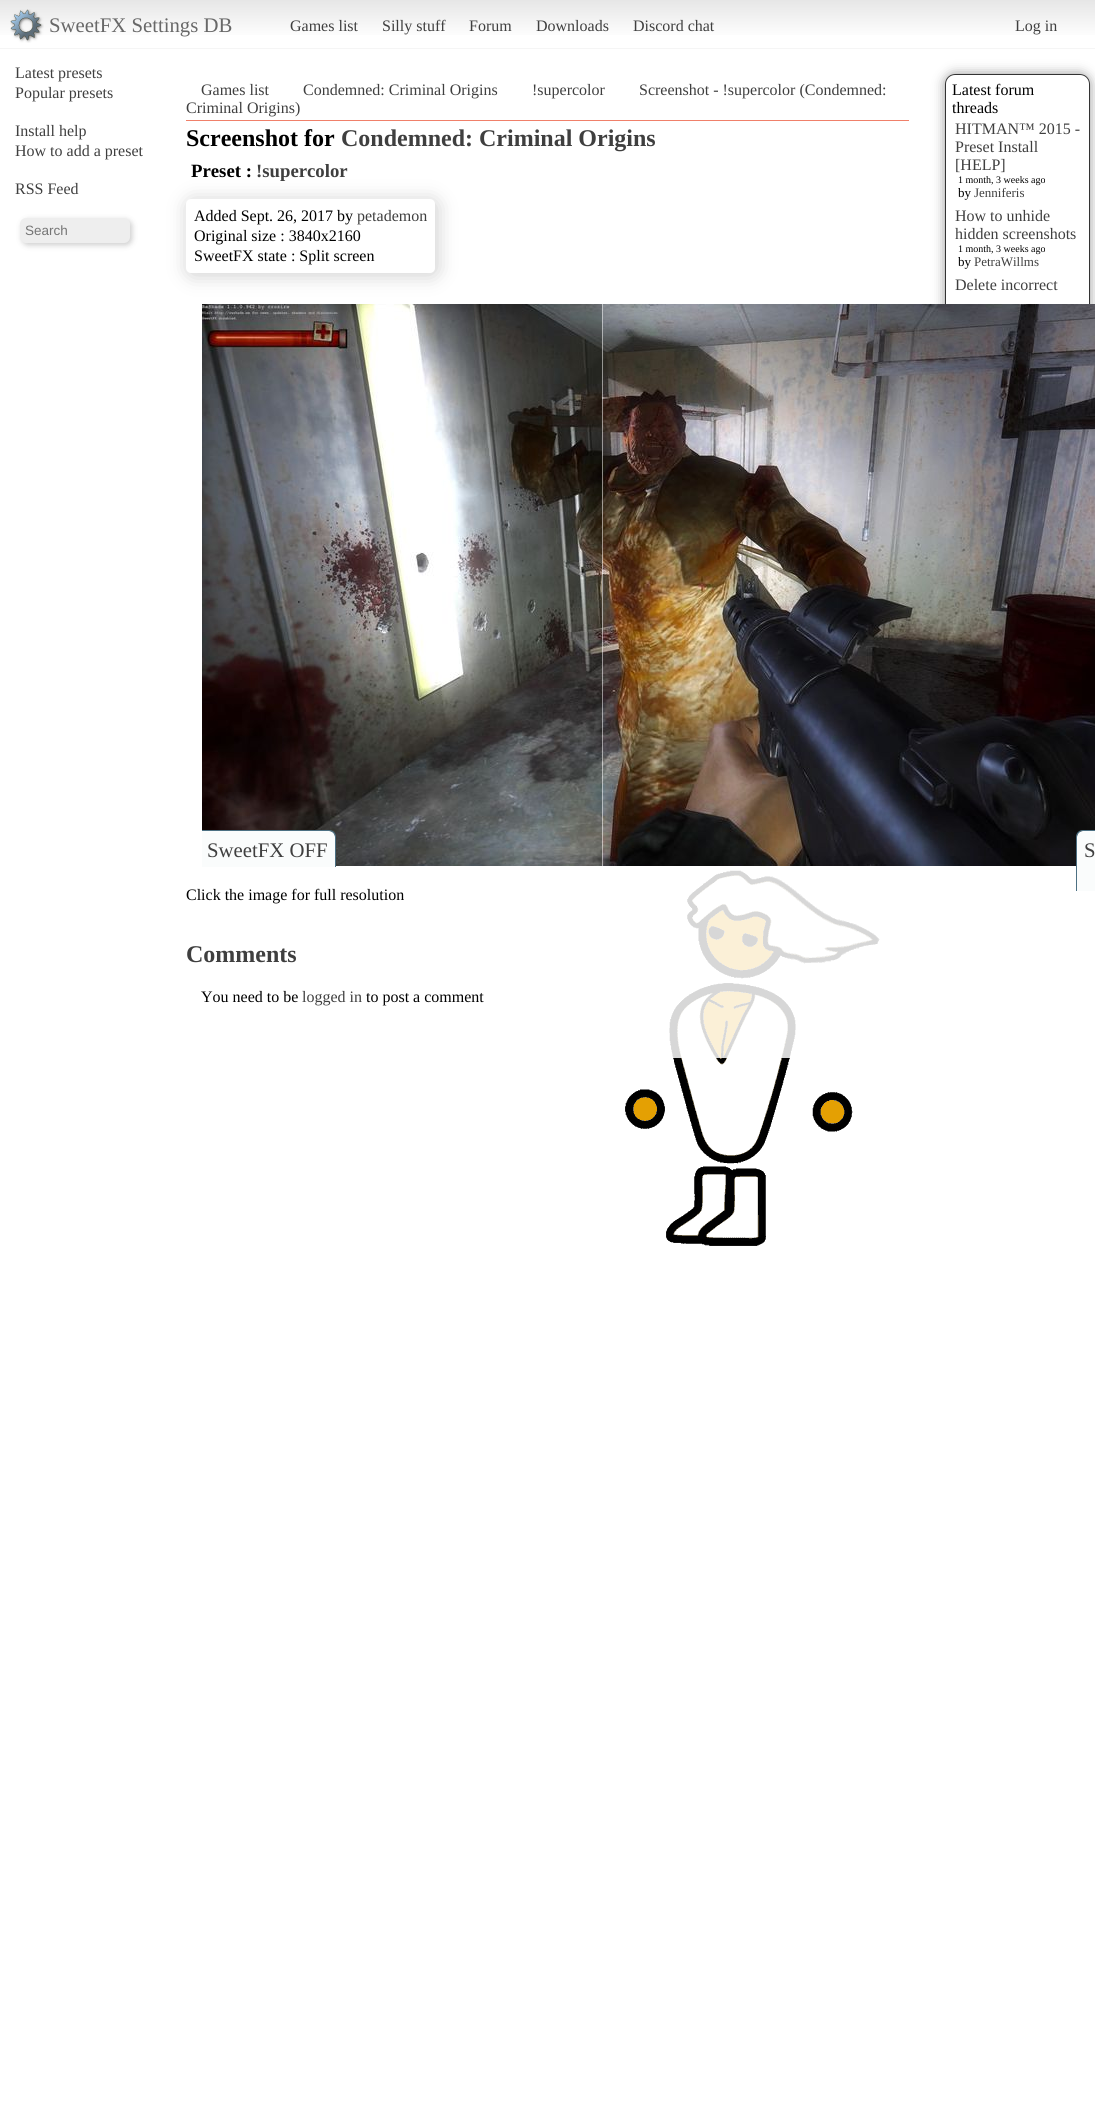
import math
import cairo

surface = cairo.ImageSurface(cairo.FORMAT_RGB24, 1095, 2118)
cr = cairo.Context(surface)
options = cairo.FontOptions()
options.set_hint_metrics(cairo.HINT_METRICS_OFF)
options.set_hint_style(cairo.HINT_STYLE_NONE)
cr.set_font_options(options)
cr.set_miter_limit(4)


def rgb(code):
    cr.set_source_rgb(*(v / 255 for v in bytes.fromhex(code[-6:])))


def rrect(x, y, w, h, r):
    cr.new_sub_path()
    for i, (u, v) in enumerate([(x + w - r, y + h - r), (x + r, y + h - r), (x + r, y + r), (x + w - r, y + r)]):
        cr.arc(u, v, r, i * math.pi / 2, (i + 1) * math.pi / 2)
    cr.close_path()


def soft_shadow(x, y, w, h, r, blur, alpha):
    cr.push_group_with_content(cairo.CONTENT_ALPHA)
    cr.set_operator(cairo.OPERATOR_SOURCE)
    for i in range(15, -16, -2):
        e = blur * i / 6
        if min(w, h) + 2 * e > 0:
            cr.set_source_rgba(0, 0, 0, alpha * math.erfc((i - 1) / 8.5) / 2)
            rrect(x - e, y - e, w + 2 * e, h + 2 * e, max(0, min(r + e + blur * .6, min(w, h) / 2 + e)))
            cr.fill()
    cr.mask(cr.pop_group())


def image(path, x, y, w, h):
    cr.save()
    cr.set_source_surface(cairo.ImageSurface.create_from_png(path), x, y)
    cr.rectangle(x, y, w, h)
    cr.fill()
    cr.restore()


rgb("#ffffff")
cr.paint()
image("img/1.png", 625, 870, 255, 376)
gradient = cairo.LinearGradient(548, 0, 548, 48)
gradient.add_color_stop_rgba(0, 0.902, 0.902, 0.902, 1)
gradient.add_color_stop_rgba(0.8, 1, 1, 1, 1)
cr.set_source(gradient)
cr.rectangle(0, 0, 1095, 35)
cr.fill()
rgb("#f5f5f5")
cr.rectangle(0, 48, 1095, 1)
cr.fill()
image("img/2.png", 10, 9, 34, 34)
rgb("#323232")
soft_shadow(22, 220, 110, 25, 6, 3, 0.25)
rgb("#eeeeee")
rrect(20, 218, 110, 25, 6)
cr.fill()
cr.set_source_rgba(1, 1, 1, 0.84)
cr.rectangle(669, 870, 211, 188)
cr.fill()
rgb("#f0806a")
cr.rectangle(186, 120, 723, 1)
cr.fill()
rgb("#b6b6b6")
soft_shadow(188, 201, 249, 74, 5, 10, 0.68)
rgb("#ffffff")
rrect(186, 199, 249, 74, 5)
cr.fill()
cr.save()
cr.set_fill_rule(cairo.FILL_RULE_EVEN_ODD)
cr.new_path()
cr.move_to(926, 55)
cr.line_to(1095, 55)
cr.line_to(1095, 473)
cr.line_to(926, 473)
cr.close_path()
cr.move_to(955, 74)
cr.line_to(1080, 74)
cr.curve_to(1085.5, 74, 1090, 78.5, 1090, 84)
cr.line_to(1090, 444)
cr.curve_to(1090, 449.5, 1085.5, 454, 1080, 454)
cr.line_to(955, 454)
cr.curve_to(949.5, 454, 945, 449.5, 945, 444)
cr.line_to(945, 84)
cr.curve_to(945, 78.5, 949.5, 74, 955, 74)
cr.close_path()
cr.clip()
rgb("#999999")
soft_shadow(945, 74, 145, 380, 10, 6, 1)
cr.restore()
rrect(945.5, 74.5, 144, 379, 9.5)
rgb("#333333")
cr.set_line_width(1)
cr.stroke()
image("img/4.png", 602, 304, 493, 562)
cr.set_source_rgba(1, 1, 1, 0.5)
cr.rectangle(602, 304, 1, 566)
cr.fill()
image("img/3.png", 202, 304, 400, 562)
rgb("#fafcfc")
cr.new_path()
cr.move_to(202, 831)
cr.line_to(329, 831)
cr.curve_to(332.5, 831, 335, 833.5, 335, 837)
cr.line_to(335, 867)
cr.line_to(202, 867)
cr.close_path()
cr.fill()
rgb("#4c7083")
cr.set_fill_rule(cairo.FILL_RULE_EVEN_ODD)
cr.new_path()
cr.move_to(202, 830)
cr.line_to(329, 830)
cr.curve_to(333, 830, 336, 833, 336, 837)
cr.line_to(336, 867)
cr.line_to(202, 867)
cr.close_path()
cr.move_to(202, 831)
cr.line_to(329, 831)
cr.curve_to(332, 831, 335, 834, 335, 837)
cr.line_to(335, 867)
cr.line_to(202, 867)
cr.close_path()
cr.fill()
rgb("#fafcfc")
cr.new_path()
cr.move_to(1083, 831)
cr.line_to(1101, 831)
cr.line_to(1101, 891)
cr.line_to(1077, 891)
cr.line_to(1077, 837)
cr.curve_to(1077, 833.5, 1079.5, 831, 1083, 831)
cr.close_path()
cr.fill()
rgb("#4c7083")
cr.new_path()
cr.move_to(1083, 830)
cr.line_to(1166, 830)
cr.line_to(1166, 891)
cr.line_to(1076, 891)
cr.line_to(1076, 837)
cr.curve_to(1076, 833, 1079, 830, 1083, 830)
cr.close_path()
cr.move_to(1083, 831)
cr.line_to(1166, 831)
cr.line_to(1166, 891)
cr.line_to(1077, 891)
cr.line_to(1077, 837)
cr.curve_to(1077, 834, 1080, 831, 1083, 831)
cr.close_path()
cr.fill()
cr.select_font_face("Liberation Serif")
cr.set_font_size(20.75)
rgb("#686868")
cr.move_to(49, 32)
cr.show_text("SweetFX Settings DB")
cr.set_font_size(16)
rgb("#3f3f3f")
for x, y, s in [
    (290, 31, "Games list"),
    (382, 31, "Silly stuff"),
    (469, 31, "Forum"),
    (536, 31, "Downloads"),
    (633, 31, "Discord chat"),
    (1015, 31, "Log in"),
    (15, 78, "Latest presets"),
    (15, 98, "Popular presets"),
    (15, 136, "Install help"),
    (15, 156, "How to add a preset"),
    (15, 194, "RSS Feed"),
]:
    cr.move_to(x, y)
    cr.show_text(s)
cr.select_font_face("Liberation Sans")
cr.set_font_size(13.5)
rgb("#757575")
cr.move_to(25, 235)
cr.show_text("Search")
cr.select_font_face("Liberation Serif")
cr.set_font_size(16)
rgb("#3f3f3f")
for x, y, s in [
    (201, 95, "Games list"),
    (303, 95, "Condemned: Criminal Origins"),
    (532, 95, "!supercolor"),
    (639, 95, "Screenshot - !supercolor (Condemned:"),
    (186, 113, "Criminal Origins)"),
]:
    cr.move_to(x, y)
    cr.show_text(s)
cr.select_font_face("Liberation Serif", cairo.FONT_SLANT_NORMAL, cairo.FONT_WEIGHT_BOLD)
cr.set_font_size(24)
rgb("#000000")
cr.move_to(186, 146)
cr.show_text("Screenshot for")
rgb("#3f3f3f")
cr.move_to(341, 146)
cr.show_text("Condemned: Criminal Origins")
cr.set_font_size(18.75)
rgb("#000000")
cr.move_to(191, 177)
cr.show_text("Preset :")
rgb("#3f3f3f")
cr.move_to(256, 177)
cr.show_text("!supercolor")
cr.select_font_face("Liberation Serif")
cr.set_font_size(16)
rgb("#000000")
cr.move_to(194, 221)
cr.show_text("Added Sept. 26, 2017 by")
rgb("#3f3f3f")
cr.move_to(357, 221)
cr.show_text("petademon")
rgb("#000000")
cr.move_to(194, 241)
cr.show_text("Original size : 3840x2160")
cr.move_to(194, 261)
cr.show_text("SweetFX state : Split screen")
cr.set_font_size(20.75)
rgb("#3f3f3f")
cr.move_to(207, 857)
cr.show_text("SweetFX OFF")
cr.move_to(1084, 857)
cr.show_text("S")
cr.set_font_size(16)
rgb("#000000")
cr.move_to(186, 900)
cr.show_text("Click the image for full resolution")
cr.select_font_face("Liberation Serif", cairo.FONT_SLANT_NORMAL, cairo.FONT_WEIGHT_BOLD)
cr.set_font_size(24)
rgb("#3f3f3f")
cr.move_to(186, 962)
cr.show_text("Comments")
cr.select_font_face("Liberation Serif")
cr.set_font_size(16)
rgb("#000000")
cr.move_to(201, 1002)
cr.show_text("You need to be")
rgb("#3f3f3f")
cr.move_to(302, 1002)
cr.show_text("logged in")
rgb("#000000")
for x, y, s in [
    (366, 1002, "to post a comment"),
    (952, 95, "Latest forum"),
    (952, 113, "threads"),
]:
    cr.move_to(x, y)
    cr.show_text(s)
rgb("#3f3f3f")
for x, y, s in [
    (955, 134, "HITMAN™ 2015 -"),
    (955, 152, "Preset Install"),
    (955, 170, "[HELP]"),
]:
    cr.move_to(x, y)
    cr.show_text(s)
cr.set_font_size(10)
rgb("#000000")
cr.move_to(958, 183)
cr.show_text("1 month, 3 weeks ago")
cr.set_font_size(13)
cr.move_to(958, 197)
cr.show_text("by")
rgb("#3f3f3f")
cr.move_to(974, 197)
cr.show_text("Jenniferis")
cr.set_font_size(16)
cr.move_to(955, 221)
cr.show_text("How to unhide")
cr.move_to(955, 239)
cr.show_text("hidden screenshots")
cr.set_font_size(10)
rgb("#000000")
cr.move_to(958, 252)
cr.show_text("1 month, 3 weeks ago")
cr.set_font_size(13)
cr.move_to(958, 266)
cr.show_text("by")
rgb("#3f3f3f")
cr.move_to(974, 266)
cr.show_text("PetraWillms")
cr.set_font_size(16)
cr.move_to(955, 290)
cr.show_text("Delete incorrect")
surface.write_to_png("page.png")
